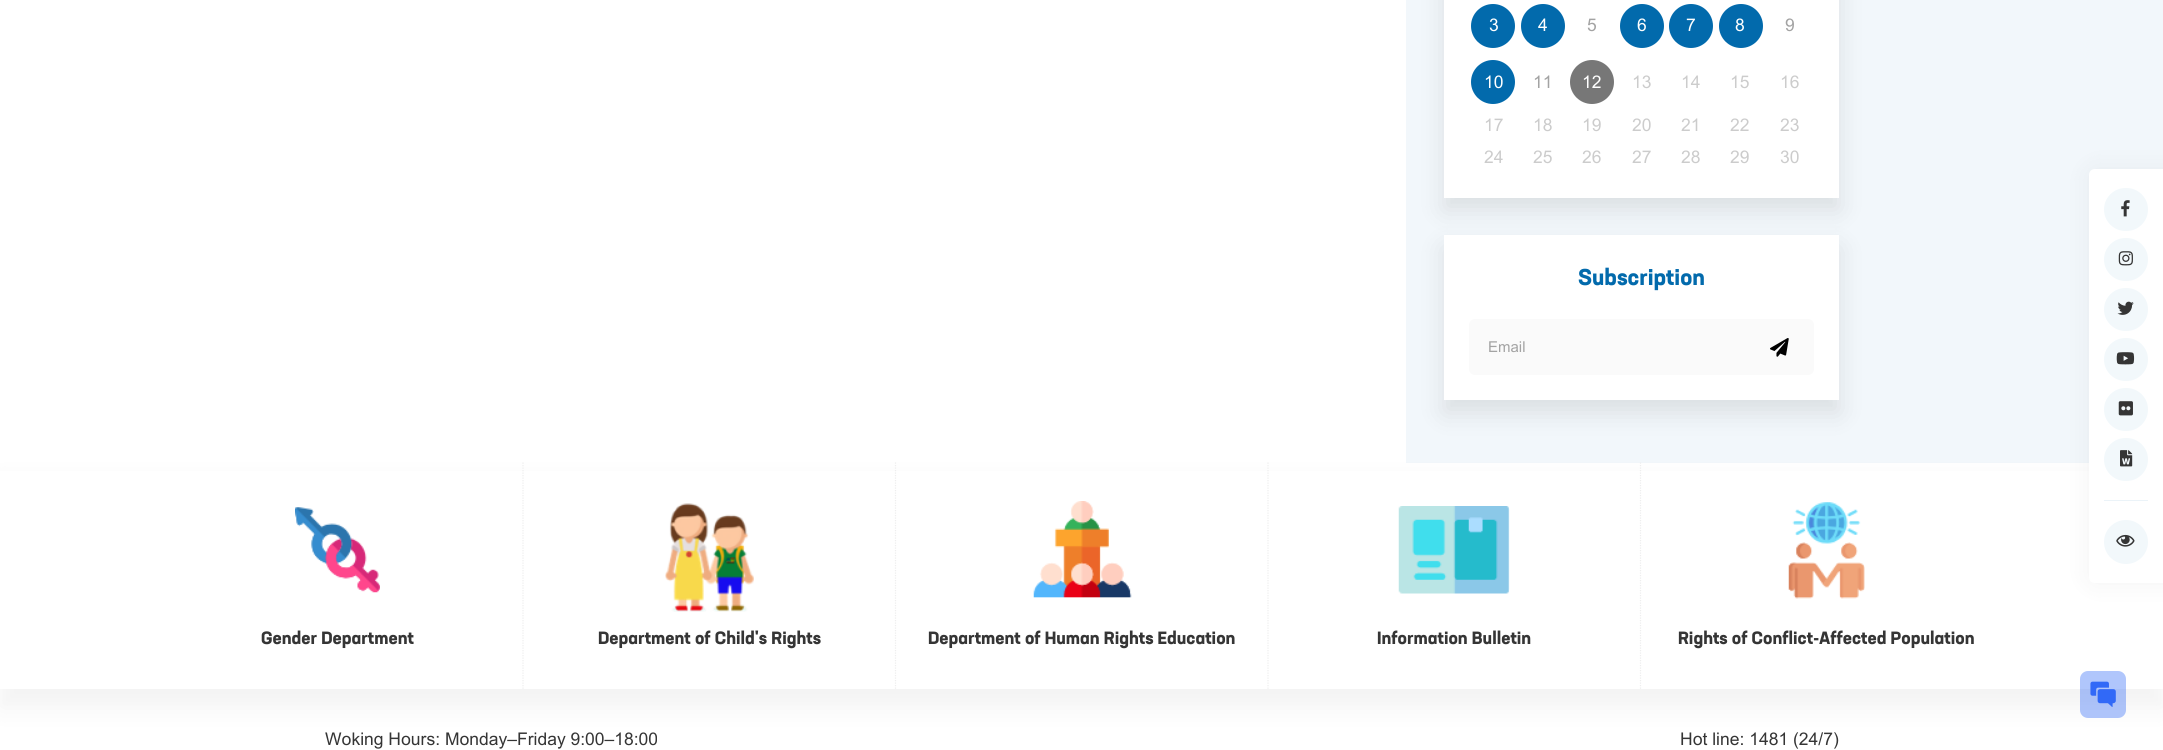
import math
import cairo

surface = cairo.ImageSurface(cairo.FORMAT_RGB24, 2163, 750)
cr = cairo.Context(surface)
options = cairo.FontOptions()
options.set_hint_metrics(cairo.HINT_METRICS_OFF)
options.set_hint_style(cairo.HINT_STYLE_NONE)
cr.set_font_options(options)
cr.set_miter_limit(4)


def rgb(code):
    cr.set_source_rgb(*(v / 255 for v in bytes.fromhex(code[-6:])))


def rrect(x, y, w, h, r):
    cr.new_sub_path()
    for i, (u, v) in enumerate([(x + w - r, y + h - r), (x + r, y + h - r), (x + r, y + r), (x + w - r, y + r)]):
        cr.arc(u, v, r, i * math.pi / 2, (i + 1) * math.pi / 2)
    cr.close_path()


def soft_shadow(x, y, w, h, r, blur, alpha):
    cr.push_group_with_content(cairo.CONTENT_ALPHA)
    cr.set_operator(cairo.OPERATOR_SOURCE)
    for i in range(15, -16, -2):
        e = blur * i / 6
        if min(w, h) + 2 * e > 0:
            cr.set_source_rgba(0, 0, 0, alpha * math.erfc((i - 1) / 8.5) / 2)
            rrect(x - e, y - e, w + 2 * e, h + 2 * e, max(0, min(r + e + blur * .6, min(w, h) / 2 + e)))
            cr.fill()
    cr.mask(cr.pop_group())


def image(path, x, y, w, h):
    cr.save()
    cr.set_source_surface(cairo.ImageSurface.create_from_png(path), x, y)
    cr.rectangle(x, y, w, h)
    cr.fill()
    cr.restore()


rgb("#ffffff")
cr.paint()
rgb("#f2f7fb")
cr.rectangle(1406, 0, 757, 463)
cr.fill()
rgb("#000000")
soft_shadow(1444, -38, 395, 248, 0, 12.5, 0.1)
rgb("#ffffff")
cr.rectangle(1444, 0, 395, 198)
cr.fill()
rgb("#026aac")
cr.arc(1493, 26, 22, 0, 2 * math.pi)
cr.fill()
cr.arc(1543, 26, 22, 0, 2 * math.pi)
cr.fill()
cr.arc(1642, 26, 22, 0, 2 * math.pi)
cr.fill()
cr.arc(1691, 26, 22, 0, 2 * math.pi)
cr.fill()
cr.arc(1741, 26, 22, 0, 2 * math.pi)
cr.fill()
cr.arc(1493, 82, 22, 0, 2 * math.pi)
cr.fill()
rgb("#777777")
cr.arc(1592, 82, 22, 0, 2 * math.pi)
cr.fill()
rgb("#000000")
soft_shadow(1444, 248, 395, 165, 0, 12.5, 0.1)
rgb("#ffffff")
cr.rectangle(1444, 235, 395, 165)
cr.fill()
rgb("#fafafa")
rrect(1469, 319, 345, 56, 6)
cr.fill()
image("img/1.png", 1770, 338, 19, 19)
rgb("#000000")
soft_shadow(0, 481, 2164, 227, 0, 12.5, 0.05)
rgb("#ffffff")
cr.rectangle(0, 471, 2163, 218)
cr.fill()
rgb("#000000")
soft_shadow(2089, 169, 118, 414, 6, 12.5, 0.05)
rgb("#ffffff")
cr.new_path()
cr.move_to(2095, 169)
cr.line_to(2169, 169)
cr.line_to(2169, 583)
cr.line_to(2095, 583)
cr.curve_to(2091.5, 583, 2089, 580.5, 2089, 577)
cr.line_to(2089, 175)
cr.curve_to(2089, 171.5, 2091.5, 169, 2095, 169)
cr.close_path()
cr.fill()
rgb("#f2f8fb")
rrect(2104, 188, 44, 43, 21.5)
cr.fill()
image("img/2.png", 2121, 200, 9, 17)
rrect(2104, 238, 44, 43, 21.5)
cr.fill()
image("img/3.png", 2118, 251, 15, 15)
rrect(2104, 288, 44, 43, 21.5)
cr.fill()
image("img/4.png", 2117, 301, 17, 14)
rrect(2104, 338, 44, 43, 21.5)
cr.fill()
image("img/5.png", 2116, 352, 19, 13)
rrect(2104, 388, 44, 43, 21.5)
cr.fill()
image("img/6.png", 2118, 401, 15, 15)
rrect(2104, 438, 44, 43, 21.5)
cr.fill()
image("img/7.png", 2120, 450, 13, 17)
rgb("#ebf3f8")
cr.rectangle(2104, 500, 44, 1)
cr.fill()
rgb("#f2f8fb")
cr.arc(2126, 542, 22, 0, 2 * math.pi)
cr.fill()
image("img/8.png", 2116, 534, 19, 13)
cr.new_path()
cr.move_to(523, 462.5)
cr.line_to(523, 689)
rgb("#eeeeee")
cr.set_line_width(1.2)
cr.set_dash([1.25, 1.25])
cr.stroke()
image("img/9.png", 295, 507, 85, 86)
cr.new_path()
cr.move_to(895.5, 462.5)
cr.line_to(895.5, 689)
cr.stroke()
image("img/10.png", 665, 503, 89, 109)
cr.new_path()
cr.move_to(1268, 462.5)
cr.line_to(1268, 689)
cr.stroke()
image("img/11.png", 1033, 501, 99, 97)
cr.new_path()
cr.move_to(1640.5, 462.5)
cr.line_to(1640.5, 689)
cr.stroke()
image("img/12.png", 1398, 506, 112, 88)
image("img/13.png", 1788, 502, 77, 97)
cr.set_source_rgba(0.192, 0.412, 0.969, 0.38)
rrect(2080, 671, 46, 47, 8)
cr.fill()
image("img/14.png", 2090, 681, 26, 26)
cr.select_font_face("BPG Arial")
cr.set_font_size(17.5)
rgb("#ffffff")
cr.move_to(1489, 31)
cr.show_text("3")
cr.move_to(1538, 31)
cr.show_text("4")
rgb("#a3a3a3")
cr.move_to(1587, 31)
cr.show_text("5")
rgb("#ffffff")
for x, y, s in [
    (1637, 31, "6"),
    (1686, 31, "7"),
    (1735, 31, "8"),
]:
    cr.move_to(x, y)
    cr.show_text(s)
rgb("#a3a3a3")
cr.move_to(1785, 31)
cr.show_text("9")
rgb("#ffffff")
cr.move_to(1484, 88)
cr.show_text("10")
rgb("#a3a3a3")
cr.move_to(1533, 88)
cr.show_text("11")
rgb("#ffffff")
cr.move_to(1582, 88)
cr.show_text("12")
rgb("#cccccc")
for x, y, s in [
    (1632, 88, "13"),
    (1681, 88, "14"),
    (1730, 88, "15"),
    (1780, 88, "16"),
    (1484, 131, "17"),
    (1533, 131, "18"),
    (1582, 131, "19"),
    (1632, 131, "20"),
    (1681, 131, "21"),
    (1730, 131, "22"),
    (1780, 131, "23"),
    (1484, 163, "24"),
    (1533, 163, "25"),
    (1582, 163, "26"),
    (1632, 163, "27"),
    (1681, 163, "28"),
    (1730, 163, "29"),
    (1780, 163, "30"),
]:
    cr.move_to(x, y)
    cr.show_text(s)
cr.select_font_face("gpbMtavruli", cairo.FONT_SLANT_NORMAL, cairo.FONT_WEIGHT_BOLD)
cr.set_font_size(22.5)
rgb("#026aac")
cr.move_to(1578, 285)
cr.show_text("Subscription")
cr.select_font_face("BPG Arial")
cr.set_font_size(15)
rgb("#a3a3a3")
cr.move_to(1488, 352)
cr.show_text("Email")
cr.select_font_face("gpbMtavruli", cairo.FONT_SLANT_NORMAL, cairo.FONT_WEIGHT_BOLD)
cr.set_font_size(17.5)
rgb("#353535")
for x, y, s in [
    (261, 644, "Gender Department"),
    (598, 644, "Department of Child's Rights"),
    (928, 644, "Department of Human Rights Education"),
    (1377, 644, "Information Bulletin"),
    (1678, 644, "Rights of Conflict-Affected Population"),
]:
    cr.move_to(x, y)
    cr.show_text(s)
cr.select_font_face("BPG Arial")
for x, y, s in [
    (325, 745, "Woking Hours: Monday–Friday 9:00–18:00"),
    (1680, 745, "Hot line: 1481"),
    (1793, 745, "(24/7)"),
]:
    cr.move_to(x, y)
    cr.show_text(s)
surface.write_to_png("page.png")
